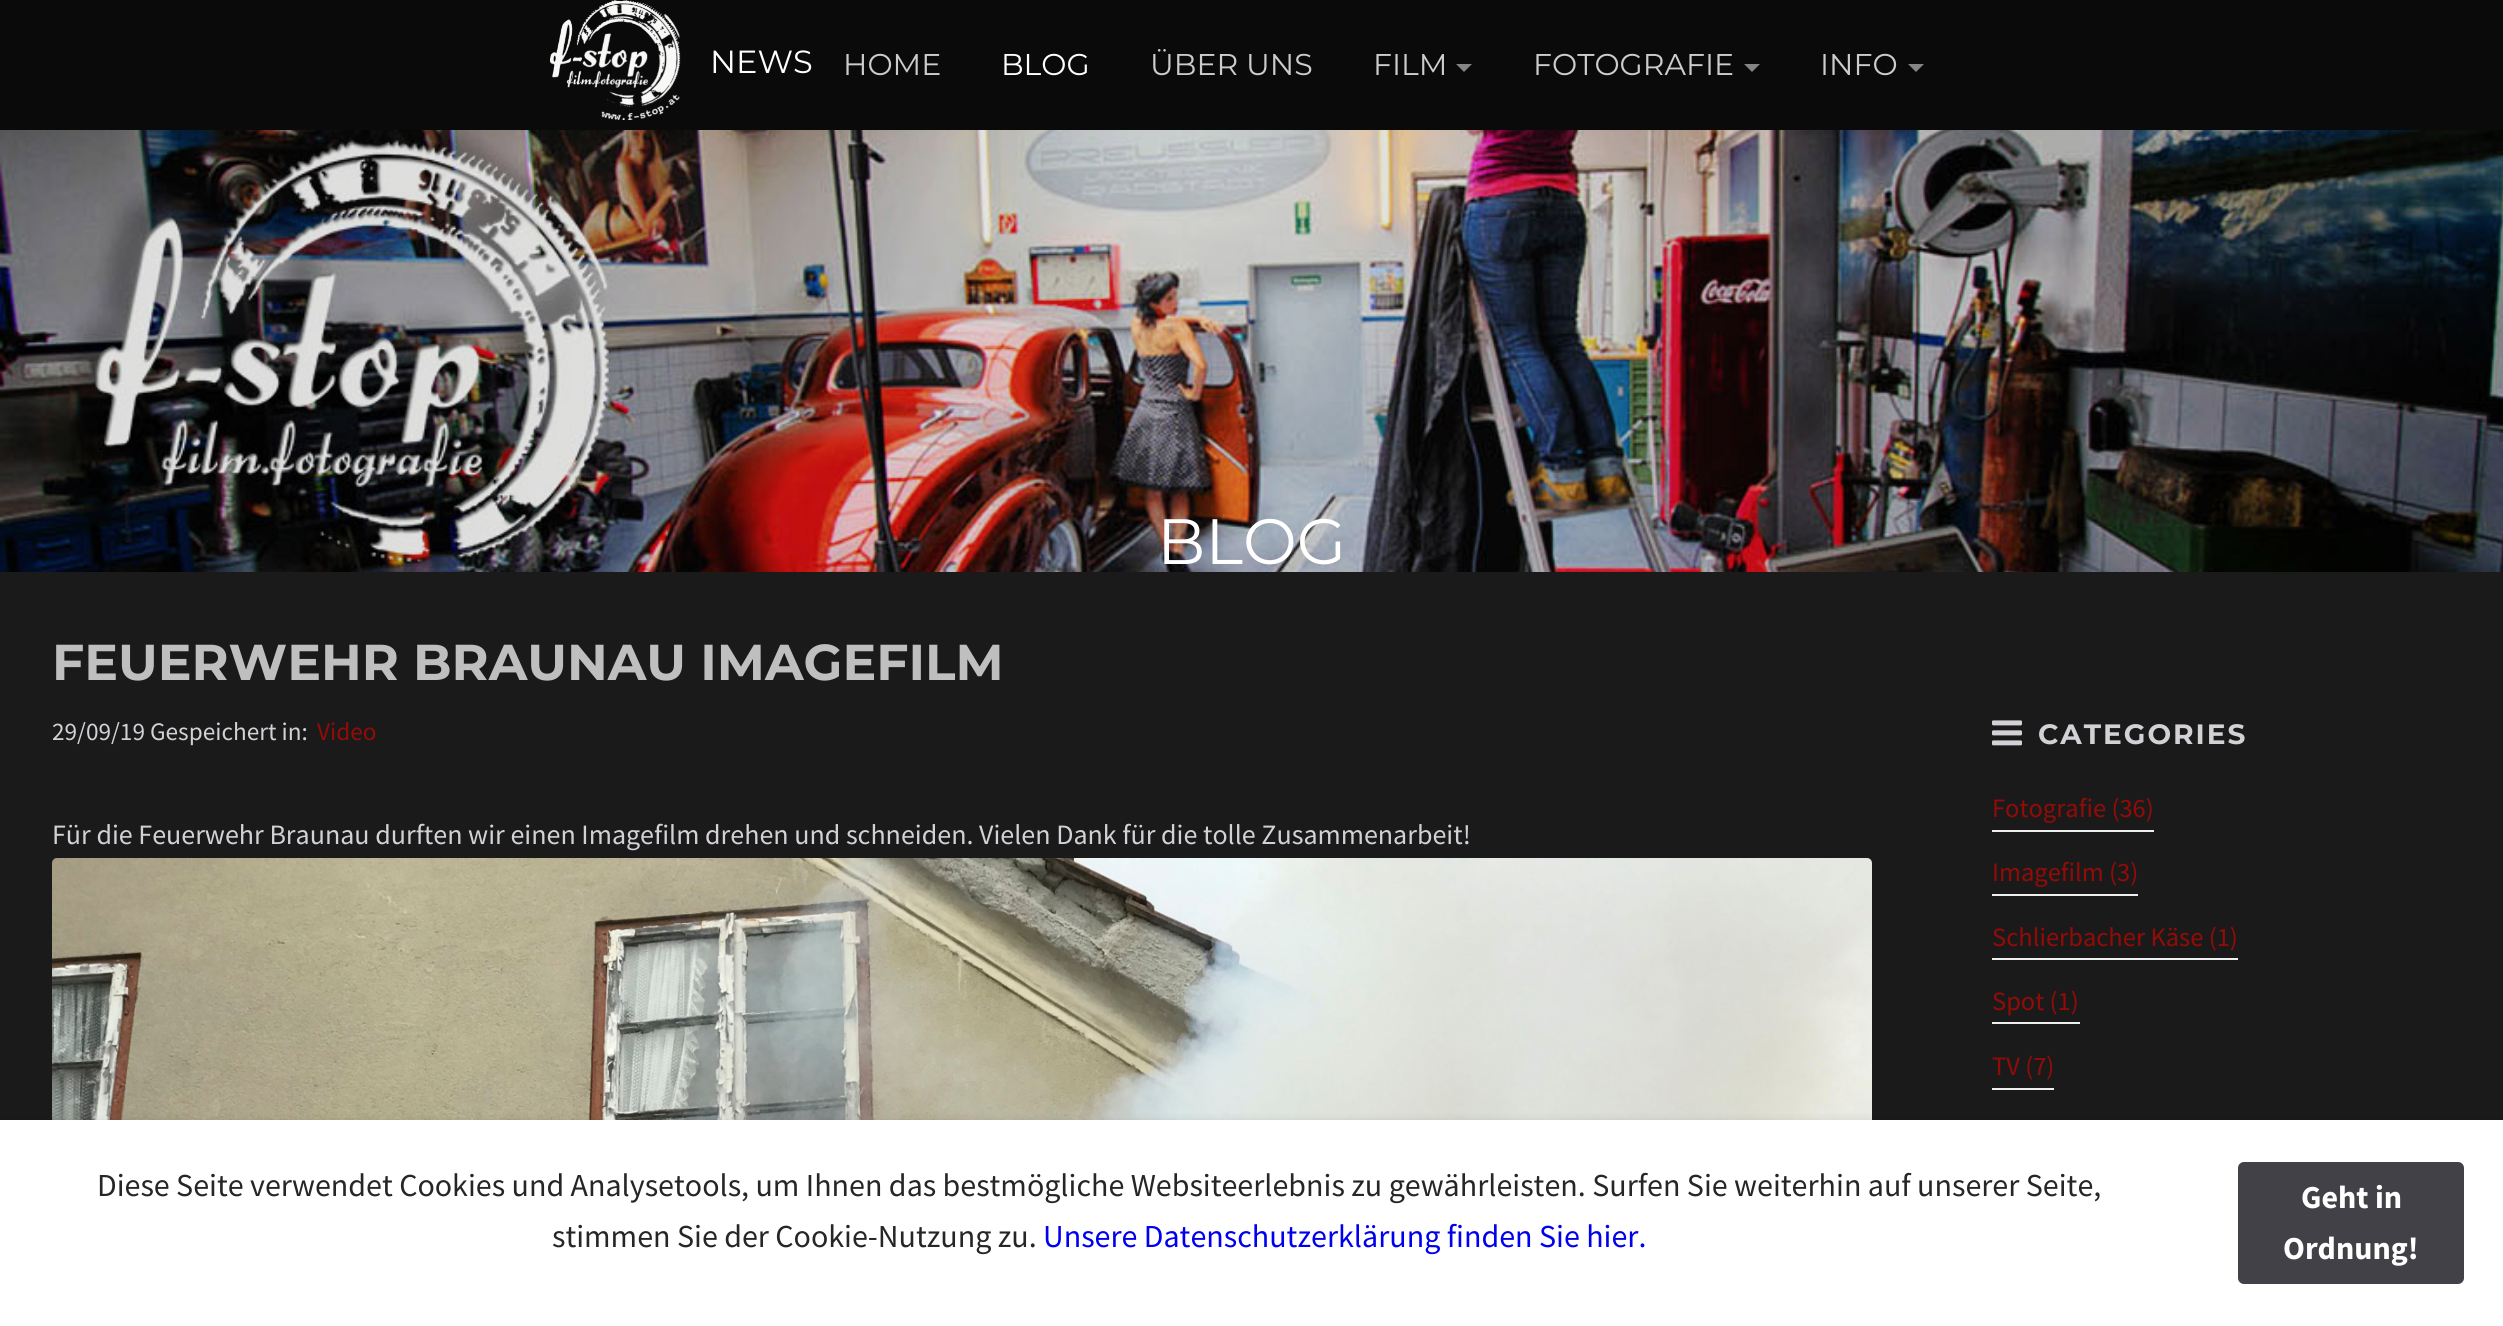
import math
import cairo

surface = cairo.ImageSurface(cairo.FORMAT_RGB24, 2503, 1326)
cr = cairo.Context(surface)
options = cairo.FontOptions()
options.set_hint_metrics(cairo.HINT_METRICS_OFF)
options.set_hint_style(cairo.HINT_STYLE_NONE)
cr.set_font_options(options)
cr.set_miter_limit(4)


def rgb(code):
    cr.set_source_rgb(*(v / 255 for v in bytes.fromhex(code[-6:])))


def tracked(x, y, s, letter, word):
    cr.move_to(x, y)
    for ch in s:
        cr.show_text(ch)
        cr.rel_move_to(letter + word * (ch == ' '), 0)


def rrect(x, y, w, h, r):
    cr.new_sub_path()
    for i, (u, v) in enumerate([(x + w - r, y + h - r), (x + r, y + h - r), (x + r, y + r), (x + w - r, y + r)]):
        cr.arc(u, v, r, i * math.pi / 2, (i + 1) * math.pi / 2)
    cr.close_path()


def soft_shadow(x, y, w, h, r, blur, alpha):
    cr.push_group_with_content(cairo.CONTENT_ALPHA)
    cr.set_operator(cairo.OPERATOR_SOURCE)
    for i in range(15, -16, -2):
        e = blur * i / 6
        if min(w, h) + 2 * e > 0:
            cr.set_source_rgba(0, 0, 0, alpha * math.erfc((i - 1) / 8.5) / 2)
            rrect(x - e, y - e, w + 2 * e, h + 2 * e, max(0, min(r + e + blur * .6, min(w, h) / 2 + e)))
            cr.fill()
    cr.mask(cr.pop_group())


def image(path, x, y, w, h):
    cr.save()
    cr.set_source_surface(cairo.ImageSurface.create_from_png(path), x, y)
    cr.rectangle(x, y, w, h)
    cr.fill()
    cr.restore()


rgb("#1b1a1b")
cr.paint()
rgb("#0b0a0b")
cr.rectangle(0, 0, 2503, 130)
cr.fill()
image("img/1.png", 550, 0, 131, 120)
rgb("#858585")
cr.new_path()
cr.move_to(1456, 64)
cr.line_to(1472, 64)
cr.line_to(1464, 72)
cr.close_path()
cr.fill()
cr.new_path()
cr.move_to(1744, 64)
cr.line_to(1760, 64)
cr.line_to(1752, 72)
cr.close_path()
cr.fill()
cr.new_path()
cr.move_to(1908, 64)
cr.line_to(1924, 64)
cr.line_to(1916, 72)
cr.close_path()
cr.fill()
image("img/2.png", 0, 130, 2503, 442)
image("img/3.png", 52, 858, 1820, 262)
image("img/4.png", 1992, 720, 30, 26)
for x, y, w, h, color in [
    (1992, 830, 162, 2, "#eeeeee"),
    (1992, 894, 146, 2, "#eeeeee"),
    (1992, 958, 246, 2, "#eeeeee"),
    (1992, 1022, 88, 2, "#eeeeee"),
    (1992, 1088, 62, 2, "#eeeeee"),
]:
    rgb(color)
    cr.rectangle(x, y, w, h)
    cr.fill()
rgb("#000000")
soft_shadow(-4, 1120, 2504, 206, 0, 4, 0.1)
rgb("#ffffff")
cr.rectangle(0, 1120, 2503, 206)
cr.fill()
rgb("#424147")
rrect(2238, 1162, 226, 122, 6)
cr.fill()
cr.select_font_face("Montserrat")
cr.set_font_size(32)
rgb("#ffffff")
cr.move_to(710, 73)
cr.show_text("NEWS")
cr.set_font_size(30)
rgb("#cdcbcb")
cr.move_to(843, 75)
cr.show_text("HOME")
rgb("#ffffff")
cr.move_to(1001, 75)
cr.show_text("BLOG")
rgb("#cdcbcb")
for x, y, s in [
    (1150, 75, "ÜBER UNS"),
    (1373, 75, "FILM"),
    (1533, 75, "FOTOGRAFIE"),
    (1820, 75, "INFO"),
]:
    cr.move_to(x, y)
    cr.show_text(s)
cr.set_font_size(64)
rgb("#ffffff")
cr.move_to(1157, 564)
cr.show_text("BLOG")
cr.select_font_face("Montserrat", cairo.FONT_SLANT_NORMAL, cairo.FONT_WEIGHT_BOLD)
cr.set_font_size(50.4)
rgb("#bfbfbf")
cr.move_to(52, 680)
cr.show_text("FEUERWEHR BRAUNAU IMAGEFILM")
cr.select_font_face("Source Sans Pro")
cr.set_font_size(25.25)
rgb("#d3d1d5")
cr.move_to(52, 740)
cr.show_text("29/09/19 Gespeichert in:")
rgb("#930b07")
cr.move_to(317, 740)
cr.show_text("Video")
cr.set_font_size(28)
rgb("#d3d1d5")
cr.move_to(52, 844)
cr.show_text("Für die Feuerwehr Braunau durften wir einen Imagefilm drehen und schneiden. Vielen Dank für die tolle Zusammenarbeit!")
cr.select_font_face("Montserrat", cairo.FONT_SLANT_NORMAL, cairo.FONT_WEIGHT_BOLD)
tracked(2038, 744, "CATEGORIES", 2, 0)
cr.select_font_face("Source Sans Pro")
cr.set_font_size(26.5)
rgb("#930b07")
for x, y, s in [
    (1992, 817, "Fotografie (36)"),
    (1992, 881, "Imagefilm (3)"),
    (1992, 946, "Schlierbacher Käse (1)"),
    (1992, 1010, "Spot (1)"),
    (1992, 1075, "TV (7)"),
]:
    cr.move_to(x, y)
    cr.show_text(s)
cr.set_font_size(32)
rgb("#262626")
cr.move_to(97, 1196)
cr.show_text("Diese Seite verwendet Cookies und Analysetools, um Ihnen das bestmögliche Websiteerlebnis zu gewährleisten. Surfen Sie weiterhin auf unserer Seite,")
cr.move_to(552, 1247)
cr.show_text("stimmen Sie der Cookie-Nutzung zu.")
rgb("#0000ee")
cr.move_to(1043, 1247)
cr.show_text("Unsere Datenschutzerklärung finden Sie hier.")
cr.select_font_face("Source Sans Pro", cairo.FONT_SLANT_NORMAL, cairo.FONT_WEIGHT_BOLD)
rgb("#ffffff")
cr.move_to(2301, 1208)
cr.show_text("Geht in")
cr.move_to(2283, 1259)
cr.show_text("Ordnung!")
surface.write_to_png("page.png")
